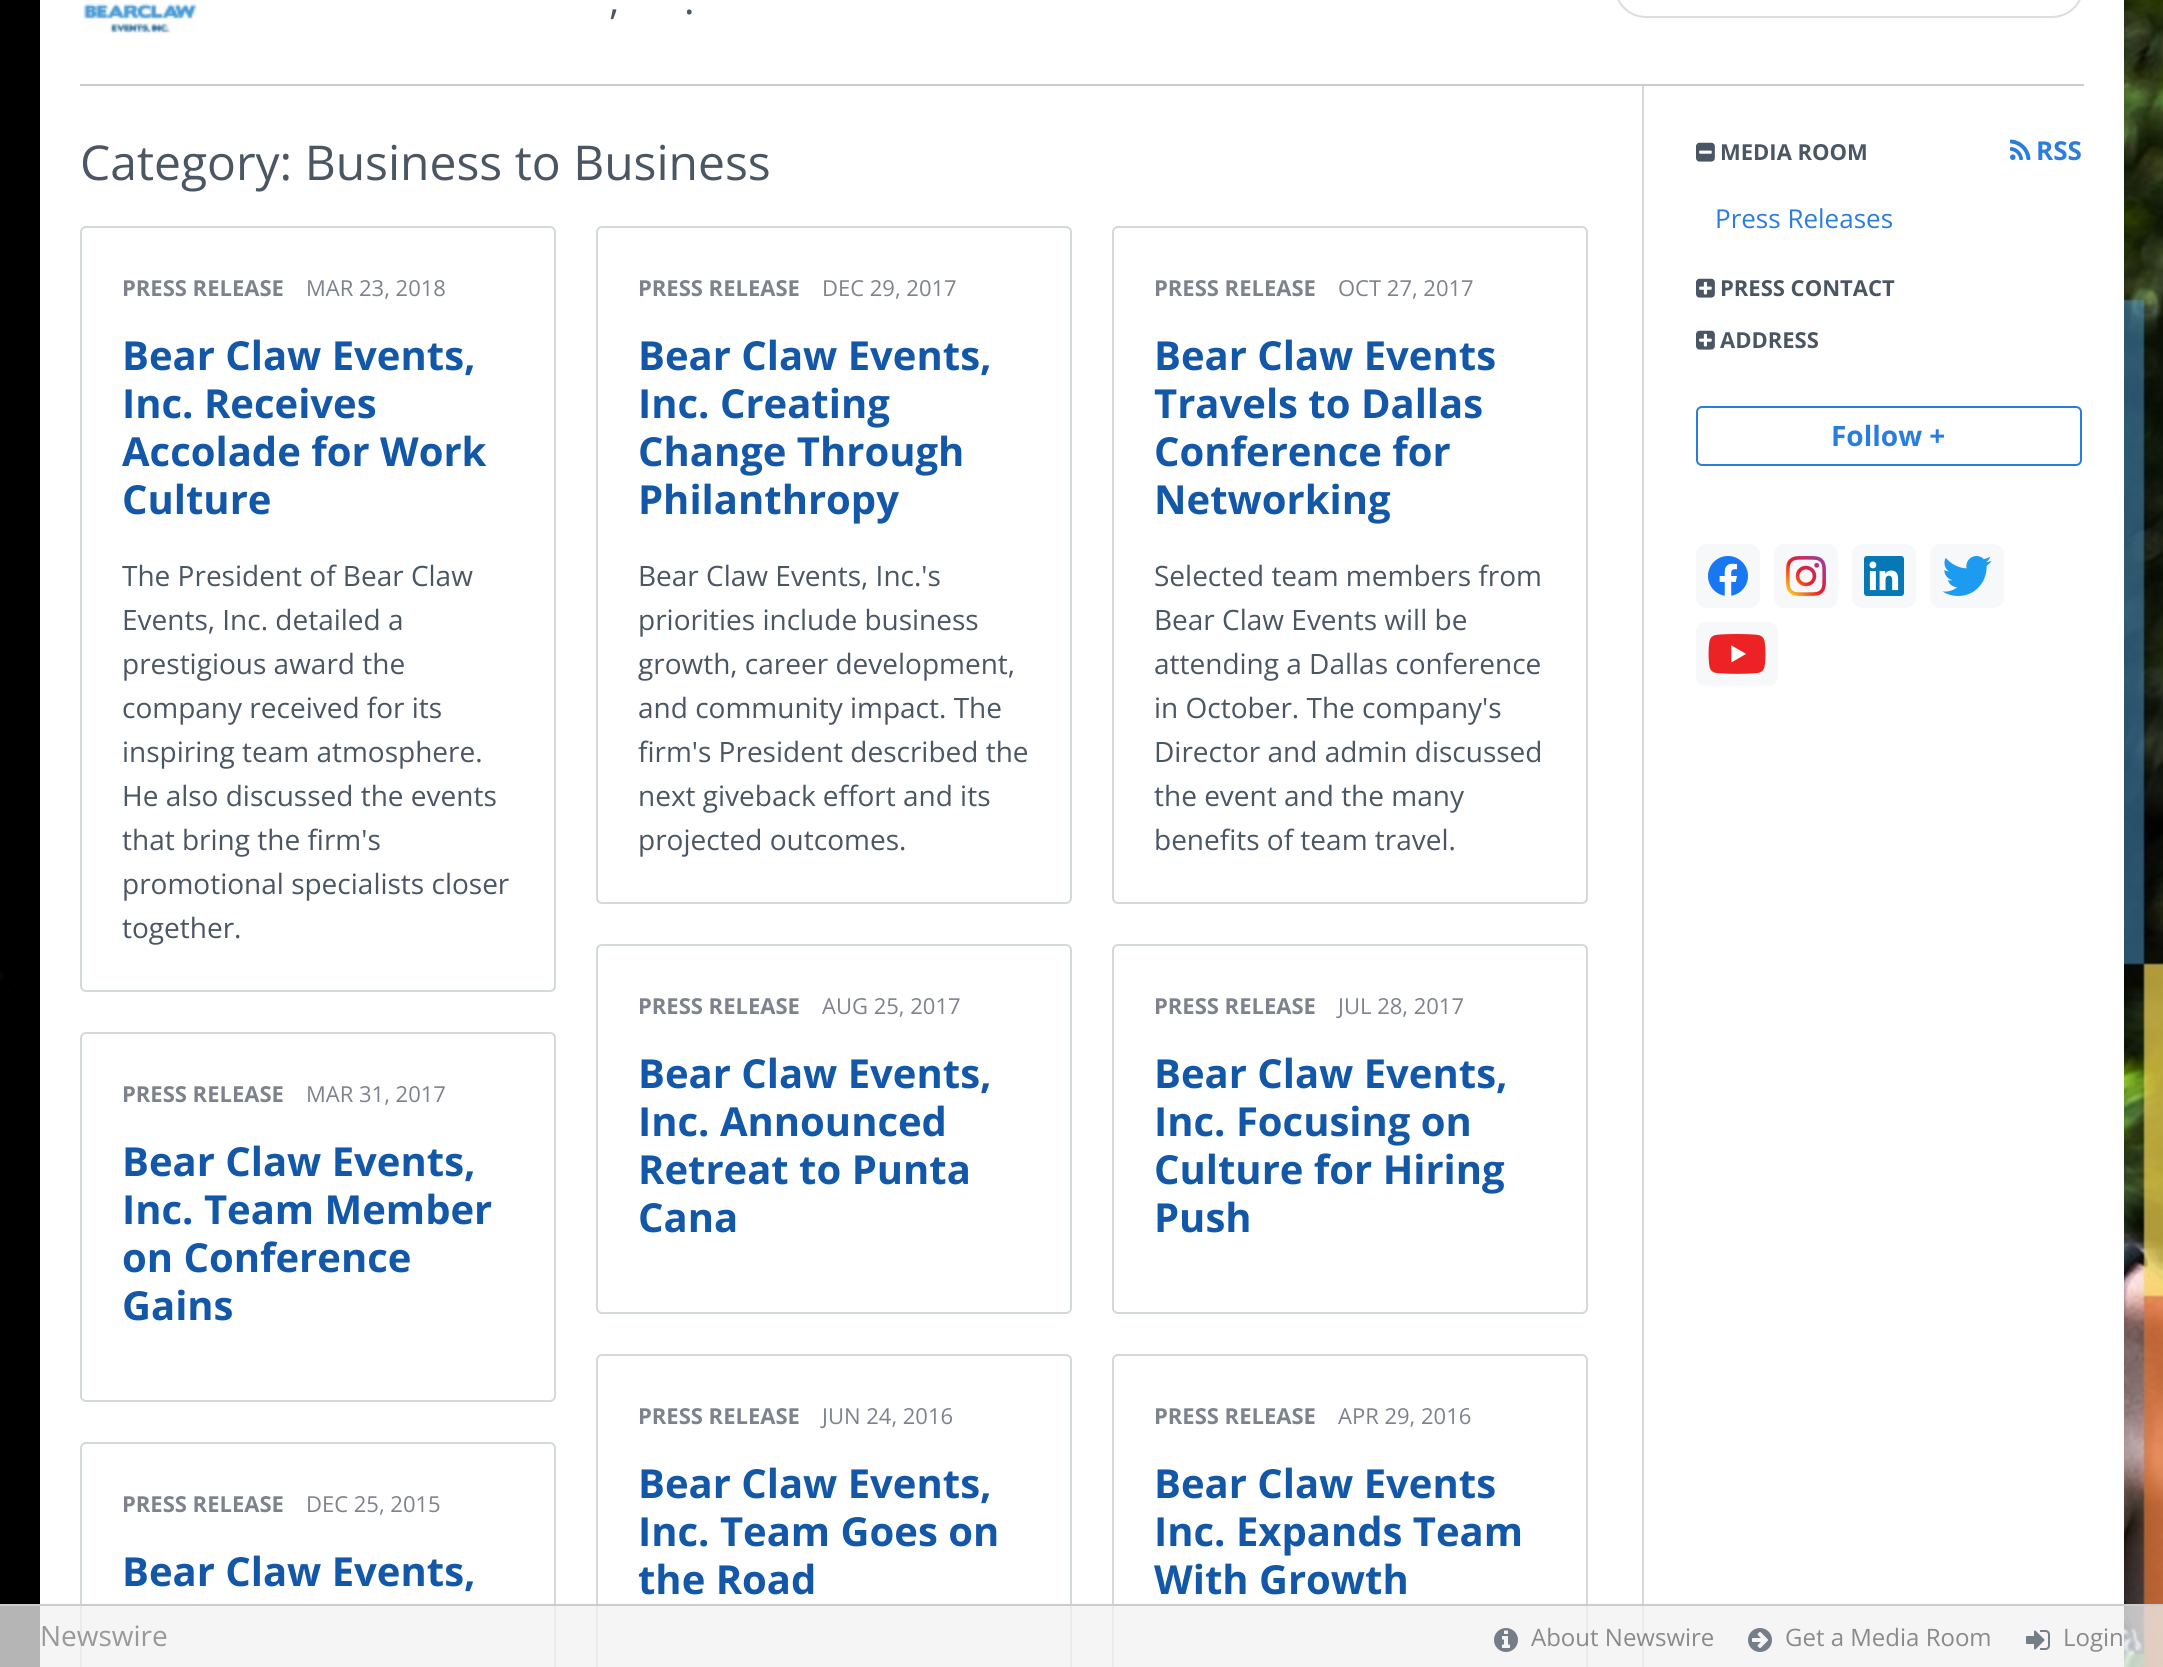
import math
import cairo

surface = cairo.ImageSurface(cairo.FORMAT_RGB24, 2163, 1667)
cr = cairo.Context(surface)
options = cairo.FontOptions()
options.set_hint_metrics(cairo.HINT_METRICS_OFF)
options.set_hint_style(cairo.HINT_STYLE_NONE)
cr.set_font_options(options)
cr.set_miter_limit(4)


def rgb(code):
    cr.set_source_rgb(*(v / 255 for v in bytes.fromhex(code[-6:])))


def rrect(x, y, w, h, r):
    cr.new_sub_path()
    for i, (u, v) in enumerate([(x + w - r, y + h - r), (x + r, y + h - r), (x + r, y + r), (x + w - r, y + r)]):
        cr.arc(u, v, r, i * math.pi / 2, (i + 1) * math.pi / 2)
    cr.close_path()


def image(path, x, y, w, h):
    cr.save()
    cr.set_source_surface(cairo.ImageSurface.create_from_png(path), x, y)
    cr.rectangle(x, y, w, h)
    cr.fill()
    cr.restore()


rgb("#ffffff")
cr.paint()
image("img/1.png", 0, 0, 2163, 1667)
rgb("#ffffff")
cr.rectangle(40, 0, 2084, 1667)
cr.fill()
rgb("#cccccc")
cr.rectangle(80, 84, 2004, 2)
cr.fill()
image("img/2.png", 83, 3, 114, 30)
rrect(1615, -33, 468, 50, 31)
rgb("#dddddd")
cr.stroke()
rgb("#d3d8d9")
cr.rectangle(1642, 86, 2, 1581)
cr.fill()
rrect(81, 227, 474, 764, 5)
cr.stroke()
rrect(81, 1033, 474, 368, 5)
cr.stroke()
rrect(81, 1443, 474, 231, 5)
cr.stroke()
rrect(597, 227, 474, 676, 5)
cr.stroke()
rrect(597, 945, 474, 368, 5)
cr.stroke()
rrect(597, 1355, 474, 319, 5)
cr.stroke()
rrect(1113, 227, 474, 676, 5)
cr.stroke()
rrect(1113, 945, 474, 368, 5)
cr.stroke()
rrect(1113, 1355, 474, 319, 5)
cr.stroke()
image("img/3.png", 1696, 142, 19, 20)
image("img/4.png", 2010, 139, 21, 21)
image("img/5.png", 1696, 278, 19, 20)
image("img/5.png", 1696, 330, 19, 20)
rrect(1697, 407, 384, 58, 5)
rgb("#2a7ddf")
cr.stroke()
rgb("#f7f8fa")
rrect(1696, 544, 64, 64, 10)
cr.fill()
image("img/6.png", 1708, 556, 40, 40)
rrect(1774, 544, 64, 64, 10)
cr.fill()
image("img/7.png", 1786, 556, 40, 40)
rrect(1852, 544, 64, 64, 10)
cr.fill()
image("img/8.png", 1864, 556, 40, 40)
rrect(1930, 544, 74, 64, 10)
cr.fill()
image("img/9.png", 1942, 556, 50, 40)
rrect(1696, 622, 82, 64, 10)
cr.fill()
image("img/10.png", 1708, 634, 58, 40)
cr.set_source_rgba(0.945, 0.945, 0.945, 0.75)
cr.rectangle(0, 1606, 2163, 61)
cr.fill()
rgb("#cccccc")
cr.rectangle(0, 1604, 2163, 2)
cr.fill()
image("img/11.png", 1494, 1628, 24, 24)
image("img/12.png", 1748, 1628, 24, 24)
image("img/13.png", 2026, 1630, 24, 20)
cr.select_font_face("Open Sans")
cr.set_font_size(40)
rgb("#4b5664")
cr.move_to(609, 14)
cr.show_text(",")
cr.move_to(684, 14)
cr.show_text(".")
cr.set_font_size(48)
cr.move_to(80, 180)
cr.show_text("Category: Business to Business")
cr.select_font_face("Open Sans", cairo.FONT_SLANT_NORMAL, cairo.FONT_WEIGHT_BOLD)
cr.set_font_size(22)
rgb("#7d828c")
cr.move_to(122, 296)
cr.show_text("PRESS RELEASE")
cr.select_font_face("Open Sans")
cr.move_to(306, 296)
cr.show_text("MAR 23, 2018")
cr.select_font_face("Open Sans", cairo.FONT_SLANT_NORMAL, cairo.FONT_WEIGHT_BOLD)
cr.set_font_size(40)
rgb("#1357a8")
for x, y, s in [
    (122, 370, "Bear Claw Events,"),
    (122, 418, "Inc. Receives"),
    (122, 466, "Accolade for Work"),
    (122, 514, "Culture"),
]:
    cr.move_to(x, y)
    cr.show_text(s)
cr.select_font_face("Open Sans")
cr.set_font_size(28)
rgb("#4b5664")
for x, y, s in [
    (122, 586, "The President of Bear Claw"),
    (122, 630, "Events, Inc. detailed a"),
    (122, 674, "prestigious award the"),
    (122, 718, "company received for its"),
    (122, 762, "inspiring team atmosphere."),
    (122, 806, "He also discussed the events"),
    (122, 850, "that bring the firm's"),
    (122, 894, "promotional specialists closer"),
    (122, 938, "together."),
]:
    cr.move_to(x, y)
    cr.show_text(s)
cr.select_font_face("Open Sans", cairo.FONT_SLANT_NORMAL, cairo.FONT_WEIGHT_BOLD)
cr.set_font_size(22)
rgb("#7d828c")
cr.move_to(122, 1102)
cr.show_text("PRESS RELEASE")
cr.select_font_face("Open Sans")
cr.move_to(306, 1102)
cr.show_text("MAR 31, 2017")
cr.select_font_face("Open Sans", cairo.FONT_SLANT_NORMAL, cairo.FONT_WEIGHT_BOLD)
cr.set_font_size(40)
rgb("#1357a8")
for x, y, s in [
    (122, 1176, "Bear Claw Events,"),
    (122, 1224, "Inc. Team Member"),
    (122, 1272, "on Conference"),
    (122, 1320, "Gains"),
]:
    cr.move_to(x, y)
    cr.show_text(s)
cr.set_font_size(22)
rgb("#7d828c")
cr.move_to(122, 1512)
cr.show_text("PRESS RELEASE")
cr.select_font_face("Open Sans")
cr.move_to(306, 1512)
cr.show_text("DEC 25, 2015")
cr.select_font_face("Open Sans", cairo.FONT_SLANT_NORMAL, cairo.FONT_WEIGHT_BOLD)
cr.set_font_size(40)
rgb("#1357a8")
cr.move_to(122, 1586)
cr.show_text("Bear Claw Events,")
cr.set_font_size(22)
rgb("#7d828c")
cr.move_to(638, 296)
cr.show_text("PRESS RELEASE")
cr.select_font_face("Open Sans")
cr.move_to(822, 296)
cr.show_text("DEC 29, 2017")
cr.select_font_face("Open Sans", cairo.FONT_SLANT_NORMAL, cairo.FONT_WEIGHT_BOLD)
cr.set_font_size(40)
rgb("#1357a8")
for x, y, s in [
    (638, 370, "Bear Claw Events,"),
    (638, 418, "Inc. Creating"),
    (638, 466, "Change Through"),
    (638, 514, "Philanthropy"),
]:
    cr.move_to(x, y)
    cr.show_text(s)
cr.select_font_face("Open Sans")
cr.set_font_size(28)
rgb("#4b5664")
for x, y, s in [
    (638, 586, "Bear Claw Events, Inc.'s"),
    (638, 630, "priorities include business"),
    (638, 674, "growth, career development,"),
    (638, 718, "and community impact. The"),
    (638, 762, "firm's President described the"),
    (638, 806, "next giveback effort and its"),
    (638, 850, "projected outcomes."),
]:
    cr.move_to(x, y)
    cr.show_text(s)
cr.select_font_face("Open Sans", cairo.FONT_SLANT_NORMAL, cairo.FONT_WEIGHT_BOLD)
cr.set_font_size(22)
rgb("#7d828c")
cr.move_to(638, 1014)
cr.show_text("PRESS RELEASE")
cr.select_font_face("Open Sans")
cr.move_to(822, 1014)
cr.show_text("AUG 25, 2017")
cr.select_font_face("Open Sans", cairo.FONT_SLANT_NORMAL, cairo.FONT_WEIGHT_BOLD)
cr.set_font_size(40)
rgb("#1357a8")
for x, y, s in [
    (638, 1088, "Bear Claw Events,"),
    (638, 1136, "Inc. Announced"),
    (638, 1184, "Retreat to Punta"),
    (638, 1232, "Cana"),
]:
    cr.move_to(x, y)
    cr.show_text(s)
cr.set_font_size(22)
rgb("#7d828c")
cr.move_to(638, 1424)
cr.show_text("PRESS RELEASE")
cr.select_font_face("Open Sans")
cr.move_to(822, 1424)
cr.show_text("JUN 24, 2016")
cr.select_font_face("Open Sans", cairo.FONT_SLANT_NORMAL, cairo.FONT_WEIGHT_BOLD)
cr.set_font_size(40)
rgb("#1357a8")
for x, y, s in [
    (638, 1498, "Bear Claw Events,"),
    (638, 1546, "Inc. Team Goes on"),
    (638, 1594, "the Road"),
]:
    cr.move_to(x, y)
    cr.show_text(s)
cr.set_font_size(22)
rgb("#7d828c")
cr.move_to(1154, 296)
cr.show_text("PRESS RELEASE")
cr.select_font_face("Open Sans")
cr.move_to(1338, 296)
cr.show_text("OCT 27, 2017")
cr.select_font_face("Open Sans", cairo.FONT_SLANT_NORMAL, cairo.FONT_WEIGHT_BOLD)
cr.set_font_size(40)
rgb("#1357a8")
for x, y, s in [
    (1154, 370, "Bear Claw Events"),
    (1154, 418, "Travels to Dallas"),
    (1154, 466, "Conference for"),
    (1154, 514, "Networking"),
]:
    cr.move_to(x, y)
    cr.show_text(s)
cr.select_font_face("Open Sans")
cr.set_font_size(28)
rgb("#4b5664")
for x, y, s in [
    (1154, 586, "Selected team members from"),
    (1154, 630, "Bear Claw Events will be"),
    (1154, 674, "attending a Dallas conference"),
    (1154, 718, "in October. The company's"),
    (1154, 762, "Director and admin discussed"),
    (1154, 806, "the event and the many"),
    (1154, 850, "benefits of team travel."),
]:
    cr.move_to(x, y)
    cr.show_text(s)
cr.select_font_face("Open Sans", cairo.FONT_SLANT_NORMAL, cairo.FONT_WEIGHT_BOLD)
cr.set_font_size(22)
rgb("#7d828c")
cr.move_to(1154, 1014)
cr.show_text("PRESS RELEASE")
cr.select_font_face("Open Sans")
cr.move_to(1338, 1014)
cr.show_text("JUL 28, 2017")
cr.select_font_face("Open Sans", cairo.FONT_SLANT_NORMAL, cairo.FONT_WEIGHT_BOLD)
cr.set_font_size(40)
rgb("#1357a8")
for x, y, s in [
    (1154, 1088, "Bear Claw Events,"),
    (1154, 1136, "Inc. Focusing on"),
    (1154, 1184, "Culture for Hiring"),
    (1154, 1232, "Push"),
]:
    cr.move_to(x, y)
    cr.show_text(s)
cr.set_font_size(22)
rgb("#7d828c")
cr.move_to(1154, 1424)
cr.show_text("PRESS RELEASE")
cr.select_font_face("Open Sans")
cr.move_to(1338, 1424)
cr.show_text("APR 29, 2016")
cr.select_font_face("Open Sans", cairo.FONT_SLANT_NORMAL, cairo.FONT_WEIGHT_BOLD)
cr.set_font_size(40)
rgb("#1357a8")
for x, y, s in [
    (1154, 1498, "Bear Claw Events"),
    (1154, 1546, "Inc. Expands Team"),
    (1154, 1594, "With Growth"),
]:
    cr.move_to(x, y)
    cr.show_text(s)
cr.set_font_size(22)
rgb("#4b5664")
cr.move_to(1720, 160)
cr.show_text("MEDIA ROOM")
cr.set_font_size(26)
rgb("#2a7ddf")
cr.move_to(2036, 160)
cr.show_text("RSS")
cr.select_font_face("Open Sans")
cr.move_to(1715, 228)
cr.show_text("Press Releases")
cr.select_font_face("Open Sans", cairo.FONT_SLANT_NORMAL, cairo.FONT_WEIGHT_BOLD)
cr.set_font_size(22)
rgb("#4b5664")
cr.move_to(1720, 296)
cr.show_text("PRESS CONTACT")
cr.move_to(1720, 348)
cr.show_text("ADDRESS")
cr.set_font_size(28)
rgb("#2a7ddf")
cr.move_to(1831, 446)
cr.show_text("Follow +")
cr.select_font_face("Open Sans")
rgb("#999999")
cr.move_to(40, 1646)
cr.show_text("Newswire")
cr.set_font_size(24)
rgb("#8a8a8a")
for x, y, s in [
    (1531, 1646, "About Newswire"),
    (1785, 1646, "Get a Media Room"),
    (2063, 1646, "Login"),
]:
    cr.move_to(x, y)
    cr.show_text(s)
surface.write_to_png("page.png")
